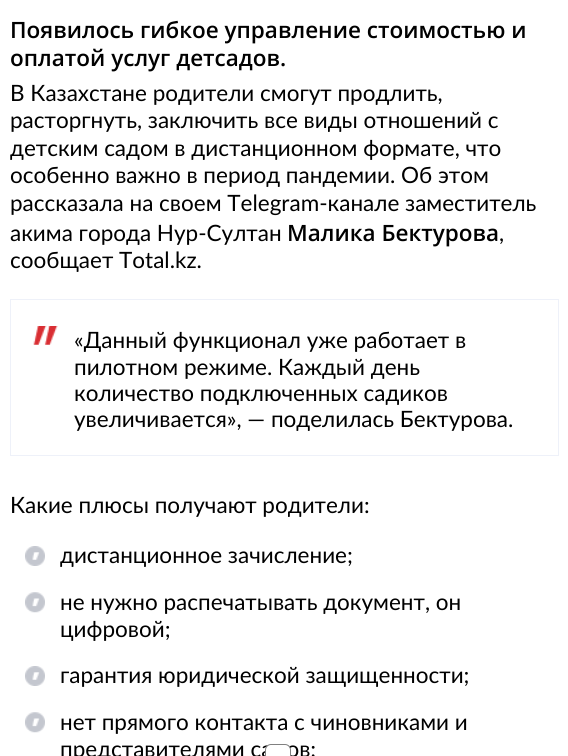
import math
import cairo

surface = cairo.ImageSurface(cairo.FORMAT_RGB24, 568, 756)
cr = cairo.Context(surface)
options = cairo.FontOptions()
options.set_hint_metrics(cairo.HINT_METRICS_OFF)
options.set_hint_style(cairo.HINT_STYLE_NONE)
cr.set_font_options(options)
cr.set_miter_limit(4)


def rgb(code):
    cr.set_source_rgb(*(v / 255 for v in bytes.fromhex(code[-6:])))


def rrect(x, y, w, h, r):
    cr.new_sub_path()
    for i, (u, v) in enumerate([(x + w - r, y + h - r), (x + r, y + h - r), (x + r, y + r), (x + w - r, y + r)]):
        cr.arc(u, v, r, i * math.pi / 2, (i + 1) * math.pi / 2)
    cr.close_path()


def image(path, x, y, w, h):
    cr.save()
    cr.set_source_surface(cairo.ImageSurface.create_from_png(path), x, y)
    cr.rectangle(x, y, w, h)
    cr.fill()
    cr.restore()


rgb("#ffffff")
cr.paint()
cr.rectangle(10.5, 299.5, 548, 156)
rgb("#eef1f9")
cr.set_line_width(1)
cr.stroke()
image("img/1.png", 33, 326, 25, 19)
image("img/2.png", 25, 546, 20, 20)
image("img/3.png", 25, 592, 20, 21)
image("img/2.png", 25, 666, 20, 20)
image("img/3.png", 25, 712, 20, 21)
cr.select_font_face("Open Sans SemiBold")
cr.set_font_size(22.5)
rgb("#000000")
cr.move_to(10, 38)
cr.show_text("Появилось гибкое управление стоимостью и")
cr.move_to(10, 66)
cr.show_text("оплатой услуг детсадов.")
cr.select_font_face("Lato")
for x, y, s in [
    (10, 101, "В Казахстане родители смогут продлить,"),
    (10, 128, "расторгнуть, заключить все виды отношений с"),
    (10, 156, "детским садом в дистанционном формате, что"),
    (10, 183, "особенно важно в период пандемии. Об этом"),
    (10, 211, "рассказала на своем Telegram-канале заместитель"),
    (10, 241, "акима города Нур-Султан"),
]:
    cr.move_to(x, y)
    cr.show_text(s)
cr.select_font_face("Open Sans SemiBold")
cr.move_to(287, 241)
cr.show_text("Малика Бектурова")
cr.select_font_face("Lato")
for x, y, s in [
    (499, 241, ","),
    (10, 268, "сообщает Total.kz."),
    (74, 348, "«Данный функционал уже работает в"),
    (74, 375, "пилотном режиме. Каждый день"),
    (74, 401, "количество подключенных садиков"),
    (74, 427, "увеличивается», — поделилась Бектурова."),
    (10, 513, "Какие плюсы получают родители:"),
    (60, 563, "дистанционное зачисление;"),
    (60, 610, "не нужно распечатывать документ, он"),
    (60, 637, "цифровой;"),
    (60, 683, "гарантия юридической защищенности;"),
    (60, 730, "нет прямого контакта с чиновниками и"),
    (60, 757, "представителями садов;"),
]:
    cr.move_to(x, y)
    cr.show_text(s)
rgb("#ffffff")
rrect(265.5, 744.5, 25, 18, 5.5)
cr.fill_preserve()
rgb("#808080")
cr.stroke()
surface.write_to_png("page.png")
